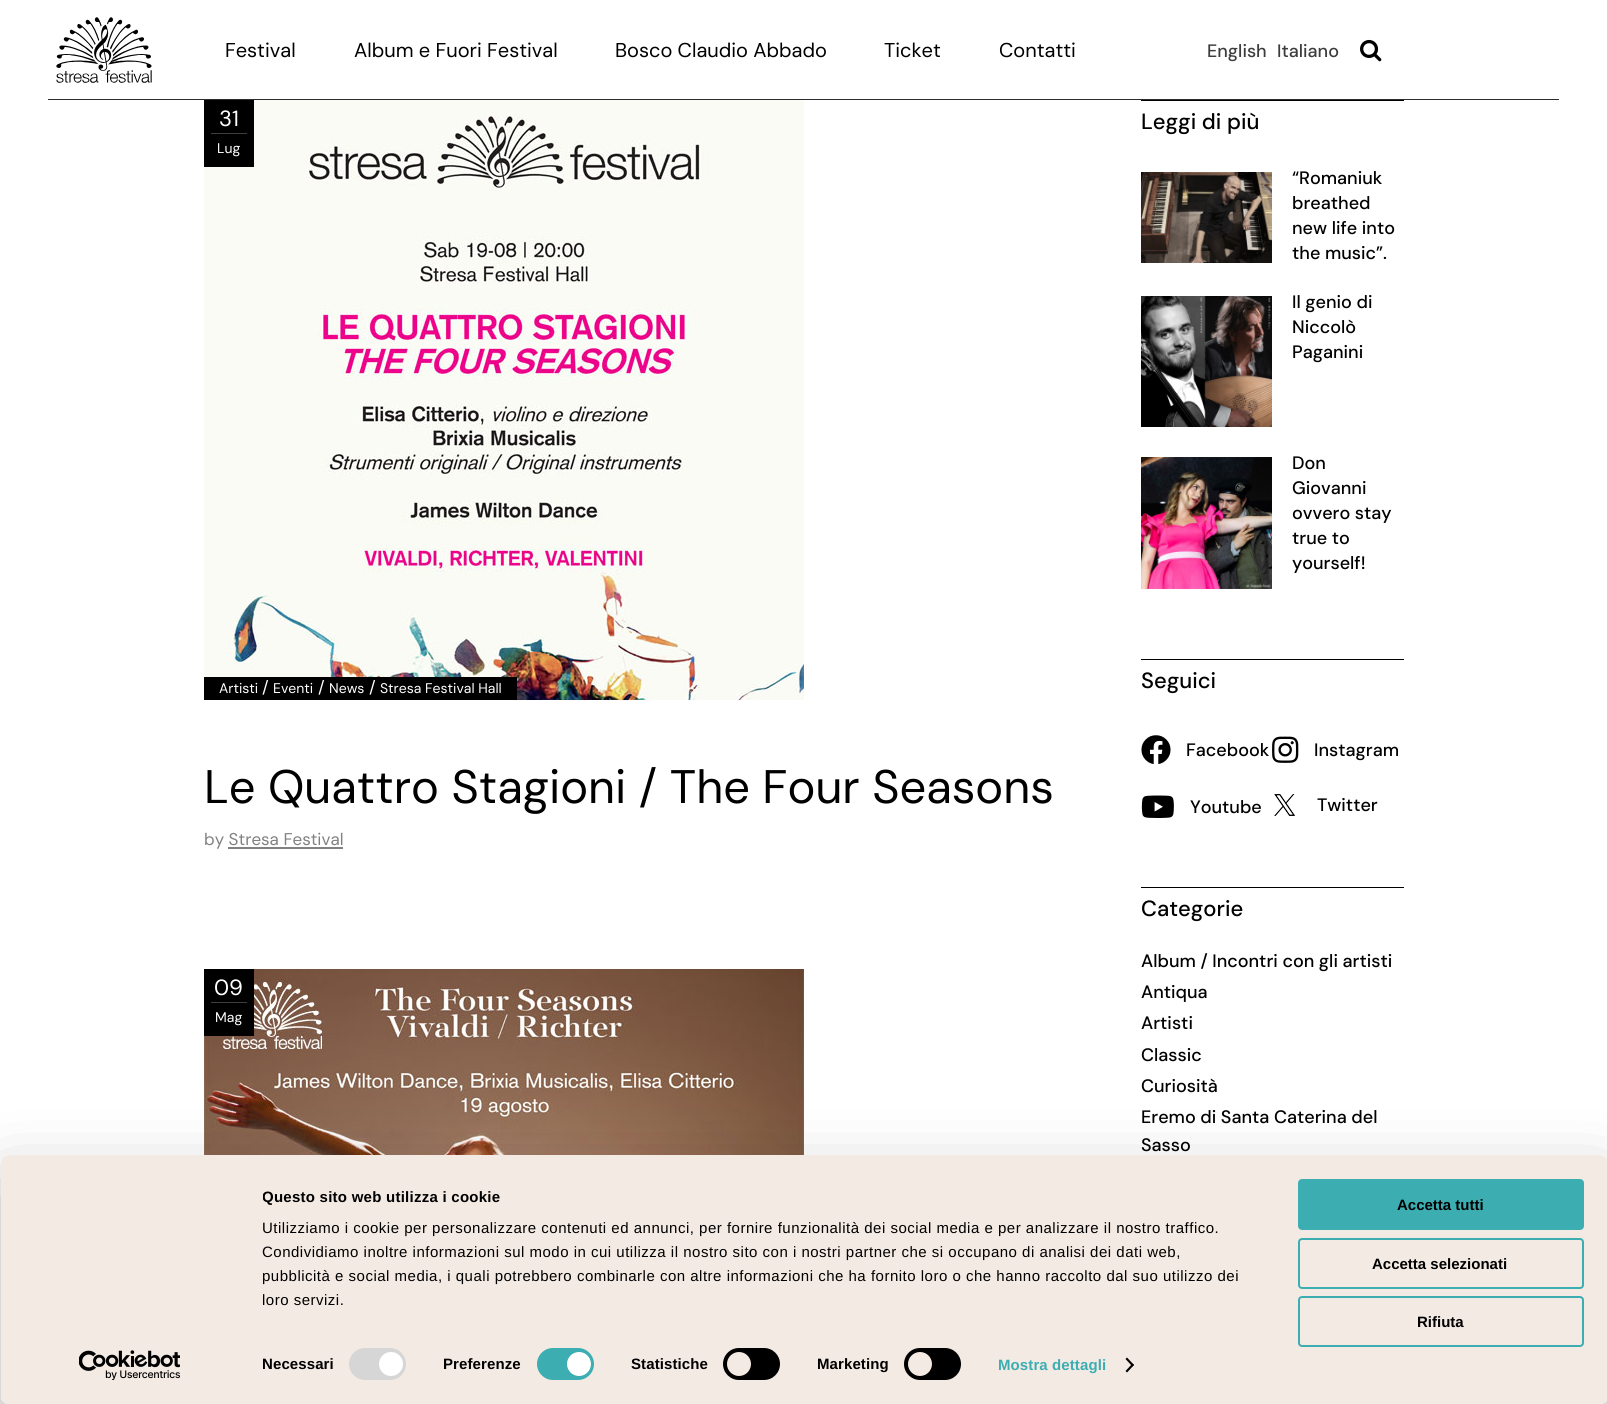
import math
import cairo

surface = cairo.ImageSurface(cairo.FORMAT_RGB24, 1607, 1404)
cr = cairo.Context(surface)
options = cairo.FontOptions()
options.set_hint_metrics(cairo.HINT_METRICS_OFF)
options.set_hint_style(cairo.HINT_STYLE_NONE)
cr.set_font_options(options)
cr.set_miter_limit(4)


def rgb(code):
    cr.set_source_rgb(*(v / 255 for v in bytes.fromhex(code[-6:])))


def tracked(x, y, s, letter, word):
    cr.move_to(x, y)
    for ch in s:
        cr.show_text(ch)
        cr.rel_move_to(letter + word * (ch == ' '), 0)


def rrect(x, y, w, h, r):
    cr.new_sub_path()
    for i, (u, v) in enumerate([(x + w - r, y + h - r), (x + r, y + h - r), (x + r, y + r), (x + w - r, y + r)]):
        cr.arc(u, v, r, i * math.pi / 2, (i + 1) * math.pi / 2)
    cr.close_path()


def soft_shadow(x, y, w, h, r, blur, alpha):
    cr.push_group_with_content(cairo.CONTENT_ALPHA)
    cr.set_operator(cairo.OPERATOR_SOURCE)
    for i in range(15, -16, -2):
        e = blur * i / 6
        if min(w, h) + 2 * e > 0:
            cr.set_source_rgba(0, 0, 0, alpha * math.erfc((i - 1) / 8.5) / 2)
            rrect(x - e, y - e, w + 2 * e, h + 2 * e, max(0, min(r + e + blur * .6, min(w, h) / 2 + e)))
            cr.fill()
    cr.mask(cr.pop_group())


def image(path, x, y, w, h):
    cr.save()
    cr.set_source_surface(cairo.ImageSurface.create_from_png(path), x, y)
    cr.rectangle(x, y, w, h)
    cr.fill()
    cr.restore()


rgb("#ffffff")
cr.paint()
image("img/1.png", 56, 17, 96, 66)
image("img/2.png", 1360, 39, 22, 23)
rgb("#2b2c2e")
cr.rectangle(48, 99, 1511, 1)
cr.fill()
image("img/3.png", 204, 100, 600, 600)
for x, y, w, h, color in [
    (204, 100, 50, 67, "#000000"),
    (211, 133, 36, 1, "#3d3d3d"),
    (204, 677, 313, 23, "#000000"),
    (228, 847, 115, 2, "#818181"),
]:
    rgb(color)
    cr.rectangle(x, y, w, h)
    cr.fill()
image("img/4.png", 204, 969, 600, 186)
for x, y, w, h, color in [
    (204, 969, 50, 67, "#000000"),
    (211, 1002, 36, 1, "#3d3d3d"),
    (1141, 100, 263, 1, "#000000"),
]:
    rgb(color)
    cr.rectangle(x, y, w, h)
    cr.fill()
image("img/5.png", 1141, 172, 131, 91)
image("img/6.png", 1141, 296, 131, 131)
image("img/7.png", 1141, 457, 131, 132)
cr.rectangle(1141, 659, 263, 1)
cr.fill()
image("img/8.png", 1141, 735, 30, 29)
image("img/9.png", 1272, 736, 27, 27)
image("img/10.png", 1141, 795, 33, 23)
image("img/11.png", 1274, 794, 21, 22)
cr.rectangle(1141, 887, 263, 1)
cr.fill()
cr.save()
cr.set_fill_rule(cairo.FILL_RULE_EVEN_ODD)
cr.new_path()
cr.move_to(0, 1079)
cr.line_to(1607, 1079)
cr.line_to(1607, 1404)
cr.line_to(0, 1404)
cr.close_path()
cr.move_to(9, 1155)
cr.line_to(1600, 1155)
cr.curve_to(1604.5, 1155, 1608, 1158.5, 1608, 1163)
cr.line_to(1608, 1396)
cr.curve_to(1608, 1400.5, 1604.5, 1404, 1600, 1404)
cr.line_to(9, 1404)
cr.curve_to(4.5, 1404, 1, 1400.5, 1, 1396)
cr.line_to(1, 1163)
cr.curve_to(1, 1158.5, 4.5, 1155, 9, 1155)
cr.close_path()
cr.clip()
rgb("#000000")
soft_shadow(1, 1185, 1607, 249, 8, 35, 0.3)
cr.restore()
rgb("#f4eae4")
rrect(1, 1155, 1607, 249, 8)
cr.fill()
rgb("#d6d6d6")
rrect(349, 1348, 57, 32, 16)
cr.fill()
rgb("#ffffff")
cr.arc(391, 1364, 12, 0, 2 * math.pi)
cr.fill()
rgb("#3caeb2")
rrect(537, 1348, 57, 32, 16)
cr.fill()
rgb("#ffffff")
cr.arc(579, 1364, 12, 0, 2 * math.pi)
cr.fill()
rgb("#000000")
rrect(723, 1348, 57, 32, 16)
cr.fill()
rgb("#f4eae4")
cr.arc(739, 1364, 12, 0, 2 * math.pi)
cr.fill()
rgb("#000000")
rrect(904, 1348, 57, 32, 16)
cr.fill()
rgb("#f4eae4")
cr.arc(920, 1364, 12, 0, 2 * math.pi)
cr.fill()
rgb("#000000")
cr.new_path()
cr.move_to(1127, 1357.5)
cr.line_to(1134, 1365)
cr.line_to(1132.5, 1366.5)
cr.line_to(1125.5, 1359)
cr.close_path()
cr.fill()
cr.new_path()
cr.move_to(1132.5, 1363.5)
cr.line_to(1134, 1365)
cr.line_to(1127, 1372.5)
cr.line_to(1125.5, 1371)
cr.close_path()
cr.fill()
rgb("#3caeb2")
rrect(1299, 1180, 284, 49, 3)
cr.fill_preserve()
cr.stroke()
rrect(1299, 1239, 284, 49, 3)
cr.stroke()
rrect(1299, 1297, 284, 49, 3)
cr.stroke()
image("img/12.png", 79, 1350, 101, 30)
cr.select_font_face("DM Sans")
cr.set_font_size(20)
rgb("#000000")
for x, y, s in [
    (225, 57, "Festival"),
    (354, 57, "Album e Fuori Festival"),
    (615, 57, "Bosco Claudio Abbado"),
    (884, 57, "Ticket"),
    (999, 57, "Contatti"),
]:
    cr.move_to(x, y)
    cr.show_text(s)
cr.select_font_face("DM Sans Medium")
cr.set_font_size(18)
rgb("#3d3d3d")
cr.move_to(1207, 57)
cr.show_text("English")
cr.move_to(1277, 57)
cr.show_text("Italiano")
cr.select_font_face("DM Sans")
cr.set_font_size(22)
rgb("#ffffff")
cr.move_to(219, 126)
cr.show_text("31")
cr.set_font_size(14)
cr.move_to(217, 153)
cr.show_text("Lug")
cr.move_to(219, 693)
cr.show_text("Artisti")
cr.set_font_size(17)
cr.move_to(262, 693)
cr.show_text("/")
cr.set_font_size(14)
cr.move_to(273, 693)
cr.show_text("Eventi")
cr.set_font_size(17)
cr.move_to(318, 693)
cr.show_text("/")
cr.set_font_size(14)
cr.move_to(329, 693)
cr.show_text("News")
cr.set_font_size(17)
cr.move_to(369, 693)
cr.show_text("/")
cr.set_font_size(14)
cr.move_to(380, 693)
cr.show_text("Stresa Festival Hall")
cr.set_font_size(47)
rgb("#000000")
cr.move_to(204, 803)
cr.show_text("Le Quattro Stagioni / The Four Seasons")
cr.set_font_size(17)
rgb("#818181")
cr.move_to(204, 845)
cr.show_text("by Stresa Festival")
cr.set_font_size(22)
rgb("#ffffff")
cr.move_to(214, 995)
cr.show_text("09")
cr.set_font_size(14)
cr.move_to(215, 1022)
cr.show_text("Mag")
cr.select_font_face("DM Sans Medium")
cr.set_font_size(22)
rgb("#000000")
cr.move_to(1141, 129)
cr.show_text("Leggi di più")
cr.set_font_size(18)
for x, y, s in [
    (1292, 184, "“Romaniuk"),
    (1292, 209, "breathed"),
    (1292, 234, "new life into"),
    (1292, 259, "the music”."),
    (1292, 308, "Il genio di"),
    (1292, 333, "Niccolò"),
    (1292, 358, "Paganini"),
    (1292, 469, "Don"),
    (1292, 494, "Giovanni"),
    (1292, 519, "ovvero stay"),
    (1292, 544, "true to"),
    (1292, 569, "yourself!"),
]:
    cr.move_to(x, y)
    cr.show_text(s)
cr.set_font_size(22)
cr.move_to(1141, 688)
cr.show_text("Seguici")
cr.set_font_size(18)
for x, y, s in [
    (1186, 756, "Facebook"),
    (1314, 756, "Instagram"),
    (1190, 813, "Youtube"),
    (1317, 811, "Twitter"),
]:
    cr.move_to(x, y)
    cr.show_text(s)
cr.set_font_size(22)
cr.move_to(1141, 916)
cr.show_text("Categorie")
cr.set_font_size(18)
for x, y, s in [
    (1141, 967, "Album / Incontri con gli artisti"),
    (1141, 998, "Antiqua"),
    (1141, 1029, "Artisti"),
    (1141, 1061, "Classic"),
    (1141, 1092, "Curiosità"),
    (1141, 1123, "Eremo di Santa Caterina del"),
    (1141, 1151, "Sasso"),
]:
    cr.move_to(x, y)
    cr.show_text(s)
cr.save()
cr.rectangle(263, 1185, 1006, 127)
cr.clip()
cr.select_font_face("Liberation Sans", cairo.FONT_SLANT_NORMAL, cairo.FONT_WEIGHT_BOLD)
cr.set_font_size(15)
tracked(262, 1202, "Questo sito web utilizza i cookie", 0.25, 0)
cr.restore()
cr.select_font_face("Liberation Sans")
cr.set_font_size(15)
for x, y, s in [
    (262, 1233, "Utilizziamo i cookie per personalizzare contenuti ed annunci, per fornire funzionalità dei social media e per analizzare il nostro traffico."),
    (262, 1257, "Condividiamo inoltre informazioni sul modo in cui utilizza il nostro sito con i nostri partner che si occupano di analisi dei dati web,"),
    (262, 1281, "pubblicità e social media, i quali potrebbero combinarle con altre informazioni che ha fornito loro o che hanno raccolto dal suo utilizzo dei"),
    (262, 1305, "loro servizi."),
]:
    tracked(x, y, s, 0.5, 0)
cr.select_font_face("Liberation Sans", cairo.FONT_SLANT_NORMAL, cairo.FONT_WEIGHT_BOLD)
for x, y, s in [
    (262, 1369, "Necessari"),
    (443, 1369, "Preferenze"),
    (631, 1369, "Statistiche"),
    (817, 1369, "Marketing"),
]:
    tracked(x, y, s, 0.1, 0)
rgb("#3caeb2")
tracked(998, 1370, "Mostra dettagli", 0.1, 0)
rgb("#000000")
for x, y, s in [
    (1397, 1210, "Accetta tutti"),
    (1372, 1269, "Accetta selezionati"),
    (1417, 1327, "Rifiuta"),
]:
    cr.move_to(x, y)
    cr.show_text(s)
surface.write_to_png("page.png")
